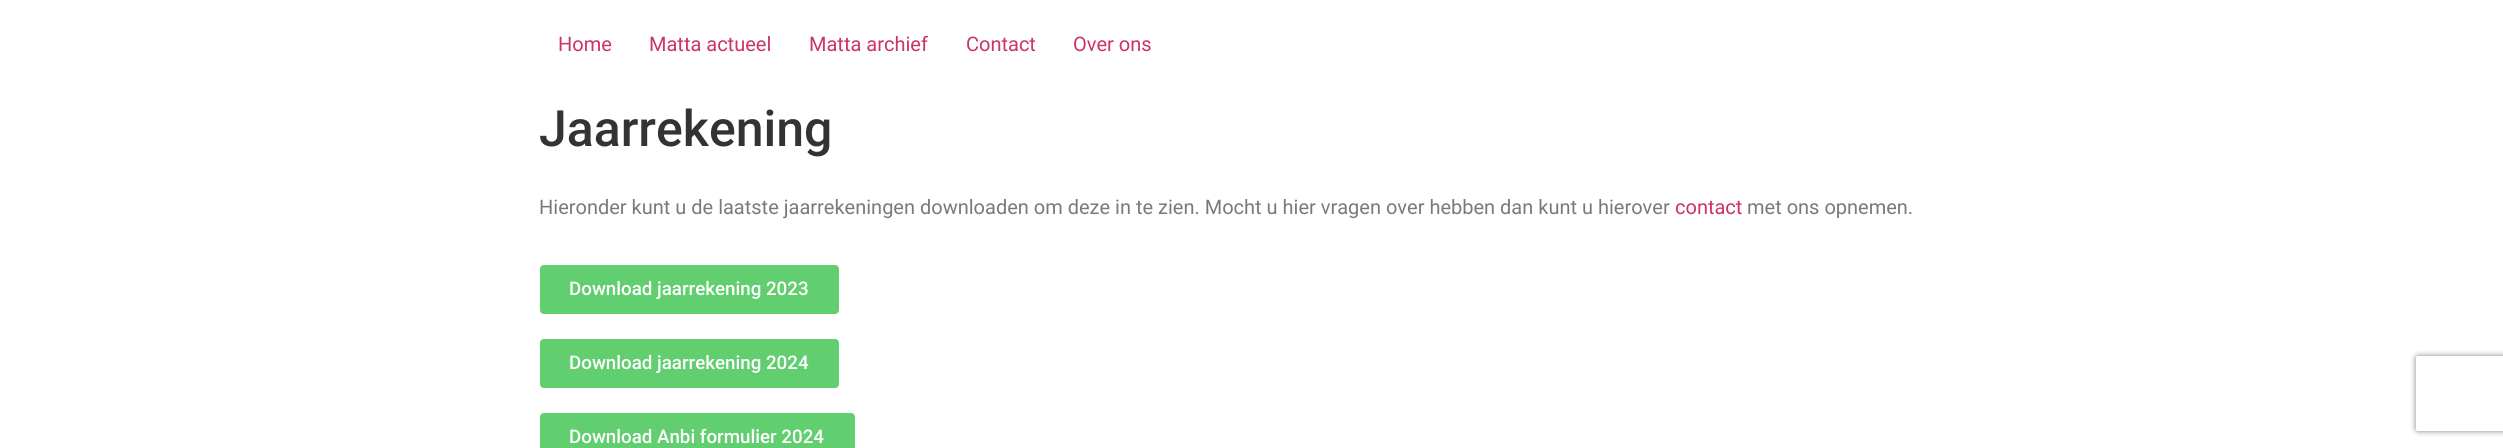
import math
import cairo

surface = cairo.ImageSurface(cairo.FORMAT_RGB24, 2503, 448)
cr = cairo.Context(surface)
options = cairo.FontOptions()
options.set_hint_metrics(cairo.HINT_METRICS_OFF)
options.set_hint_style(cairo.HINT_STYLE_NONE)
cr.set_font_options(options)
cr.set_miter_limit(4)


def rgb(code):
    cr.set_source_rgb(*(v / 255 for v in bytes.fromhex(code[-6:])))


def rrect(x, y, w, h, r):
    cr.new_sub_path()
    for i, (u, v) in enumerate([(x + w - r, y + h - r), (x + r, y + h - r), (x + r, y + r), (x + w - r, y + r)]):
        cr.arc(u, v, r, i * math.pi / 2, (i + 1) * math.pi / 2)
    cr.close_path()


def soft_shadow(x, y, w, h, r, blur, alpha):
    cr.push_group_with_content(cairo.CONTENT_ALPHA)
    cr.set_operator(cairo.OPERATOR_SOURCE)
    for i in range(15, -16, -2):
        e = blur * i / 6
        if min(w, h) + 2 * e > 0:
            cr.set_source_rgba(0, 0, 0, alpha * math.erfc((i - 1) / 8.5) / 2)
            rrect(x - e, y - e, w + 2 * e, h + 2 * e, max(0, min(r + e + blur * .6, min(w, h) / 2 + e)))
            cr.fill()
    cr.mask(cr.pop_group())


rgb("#ffffff")
cr.paint()
rgb("#61ce70")
rrect(540, 265, 299, 49, 4)
cr.fill()
rrect(540, 339, 299, 49, 4)
cr.fill()
rrect(540, 413, 315, 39, 4)
cr.fill()
cr.save()
cr.set_fill_rule(cairo.FILL_RULE_EVEN_ODD)
cr.new_path()
cr.move_to(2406, 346)
cr.line_to(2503, 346)
cr.line_to(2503, 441)
cr.line_to(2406, 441)
cr.close_path()
cr.move_to(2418.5, 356)
cr.line_to(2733.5, 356)
cr.curve_to(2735, 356, 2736, 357, 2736, 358.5)
cr.line_to(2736, 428.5)
cr.curve_to(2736, 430, 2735, 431, 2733.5, 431)
cr.line_to(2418.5, 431)
cr.curve_to(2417, 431, 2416, 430, 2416, 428.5)
cr.line_to(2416, 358.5)
cr.curve_to(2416, 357, 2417, 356, 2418.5, 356)
cr.close_path()
cr.clip()
rgb("#808080")
soft_shadow(2416, 356, 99, 75, 2.5, 3, 1)
cr.restore()
cr.select_font_face("Roboto")
cr.set_font_size(20)
rgb("#cc3366")
for x, y, s in [
    (558, 51, "Home"),
    (649, 51, "Matta actueel"),
    (809, 51, "Matta archief"),
    (966, 51, "Contact"),
    (1073, 51, "Over ons"),
]:
    cr.move_to(x, y)
    cr.show_text(s)
cr.select_font_face("Roboto Medium")
cr.set_font_size(50)
rgb("#333333")
cr.move_to(539, 146)
cr.show_text("Jaarrekening")
cr.select_font_face("Roboto")
cr.set_font_size(20)
rgb("#7a7a7a")
cr.move_to(539, 214)
cr.show_text("Hieronder kunt u de laatste jaarrekeningen downloaden om deze in te zien. Mocht u hier vragen over hebben dan kunt u hierover")
rgb("#cc3366")
cr.move_to(1675, 214)
cr.show_text("contact")
rgb("#7a7a7a")
cr.move_to(1747, 214)
cr.show_text("met ons opnemen.")
cr.select_font_face("Roboto Medium")
cr.set_font_size(18.75)
rgb("#ffffff")
for x, y, s in [
    (569, 295, "Download jaarrekening 2023"),
    (569, 369, "Download jaarrekening 2024"),
    (569, 443, "Download Anbi formulier 2024"),
]:
    cr.move_to(x, y)
    cr.show_text(s)
surface.write_to_png("page.png")
